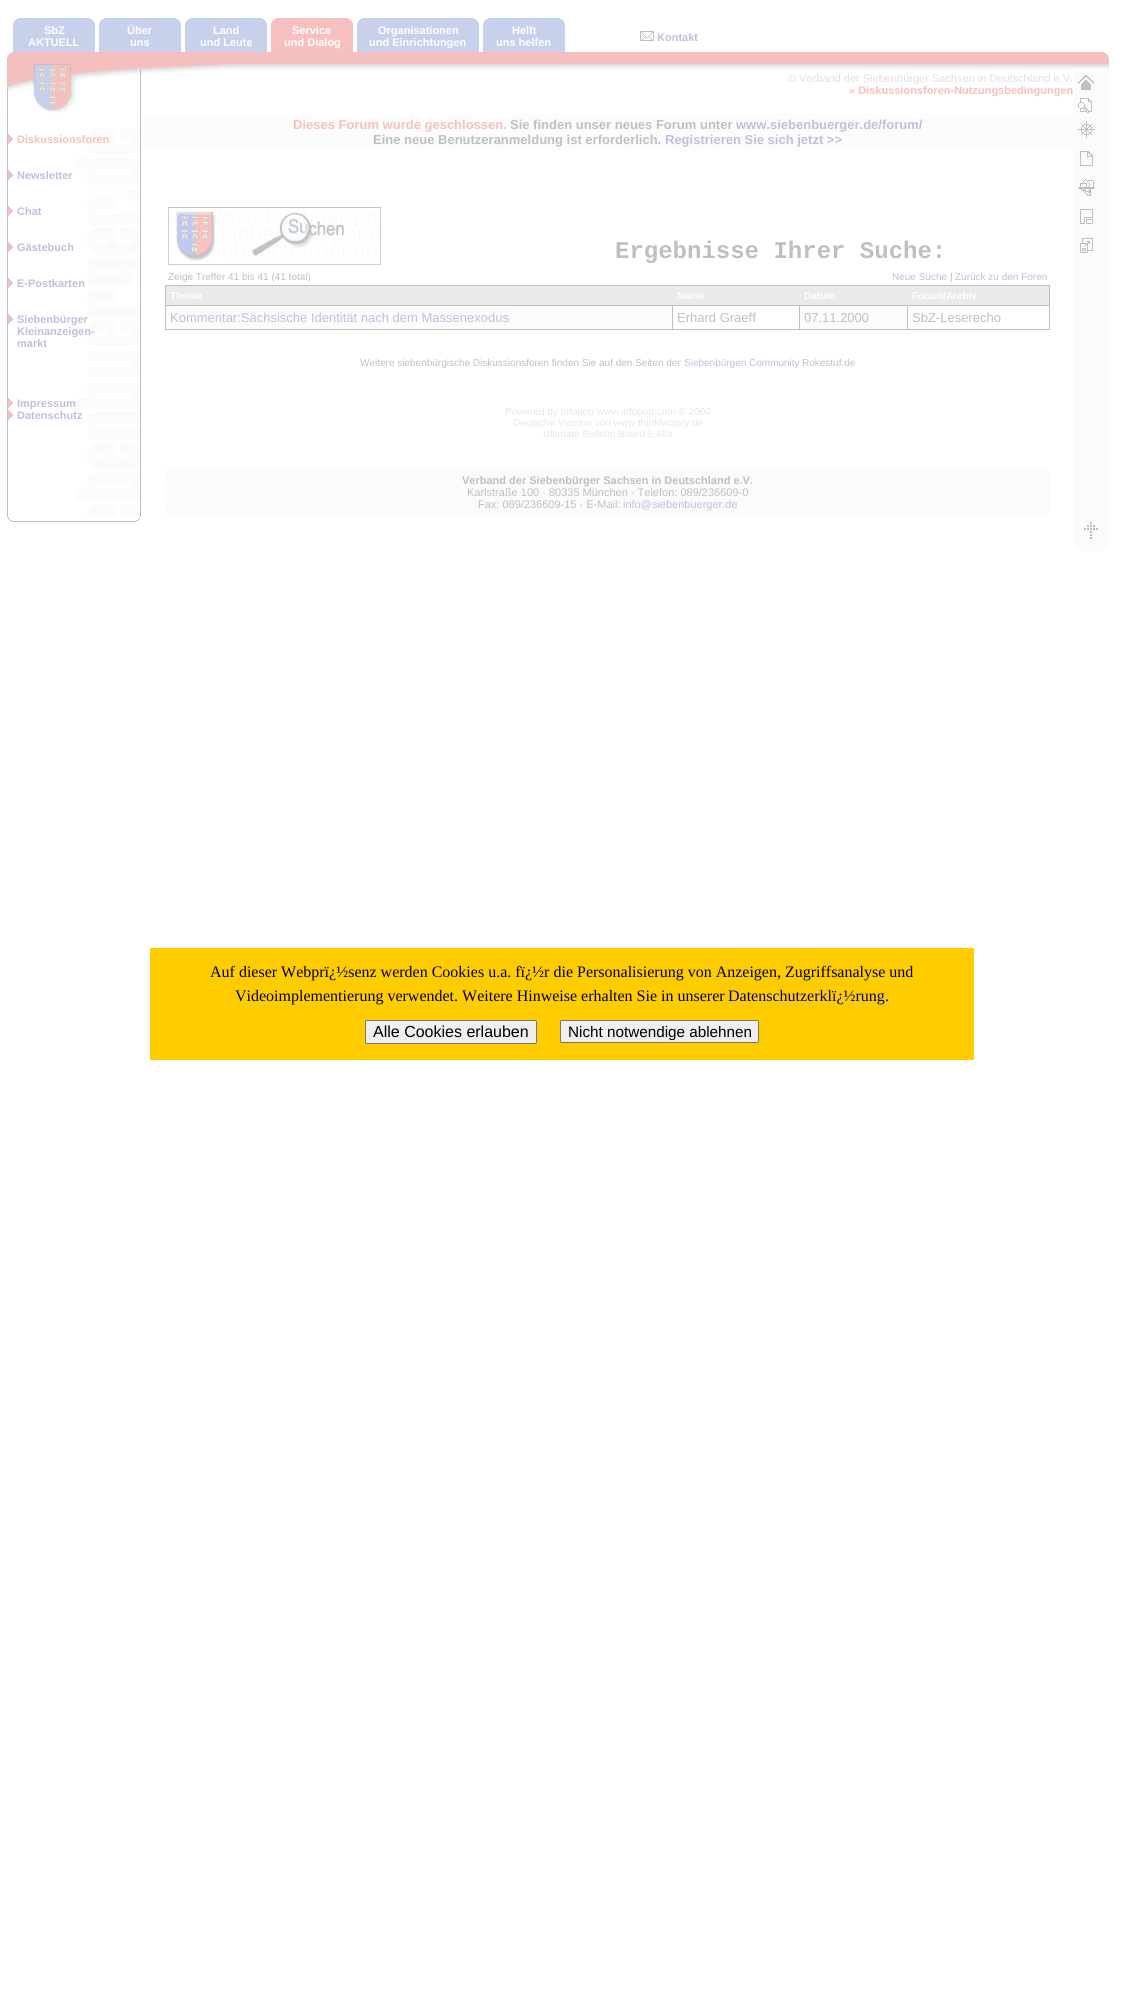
import math
import cairo

surface = cairo.ImageSurface(cairo.FORMAT_RGB24, 1124, 2008)
cr = cairo.Context(surface)
options = cairo.FontOptions()
options.set_hint_metrics(cairo.HINT_METRICS_OFF)
options.set_hint_style(cairo.HINT_STYLE_NONE)
cr.set_font_options(options)
cr.set_miter_limit(4)


def rgb(code):
    cr.set_source_rgb(*(v / 255 for v in bytes.fromhex(code[-6:])))


def rrect(x, y, w, h, r):
    cr.new_sub_path()
    for i, (u, v) in enumerate([(x + w - r, y + h - r), (x + r, y + h - r), (x + r, y + r), (x + w - r, y + r)]):
        cr.arc(u, v, r, i * math.pi / 2, (i + 1) * math.pi / 2)
    cr.close_path()


def image(path, x, y, w, h):
    cr.save()
    cr.set_source_surface(cairo.ImageSurface.create_from_png(path), x, y)
    cr.rectangle(x, y, w, h)
    cr.fill()
    cr.restore()


rgb("#ffffff")
cr.paint()
rgb("#c7d1eb")
cr.rectangle(13, 18, 82, 34)
cr.fill()
image("img/1.png", 13, 18, 5, 5)
image("img/2.png", 90, 18, 5, 5)
cr.rectangle(99, 18, 82, 34)
cr.fill()
image("img/1.png", 99, 18, 5, 5)
image("img/2.png", 176, 18, 5, 5)
cr.rectangle(185, 18, 82, 34)
cr.fill()
image("img/1.png", 185, 18, 5, 5)
image("img/2.png", 262, 18, 5, 5)
rgb("#f7bfbf")
cr.rectangle(271, 18, 82, 34)
cr.fill()
image("img/3.png", 271, 18, 5, 5)
image("img/4.png", 348, 18, 5, 5)
rgb("#c7d1eb")
cr.rectangle(357, 18, 122, 34)
cr.fill()
image("img/1.png", 357, 18, 5, 5)
image("img/2.png", 474, 18, 5, 5)
cr.rectangle(483, 18, 82, 34)
cr.fill()
image("img/1.png", 483, 18, 5, 5)
image("img/2.png", 560, 18, 5, 5)
image("img/5.png", 640, 31, 14, 10)
image("img/6.png", 7, 52, 237, 62)
image("img/7.png", 244, 52, 830, 19)
image("img/8.png", 1074, 52, 35, 62)
image("img/4.png", 1104, 52, 5, 5)
image("img/9.png", 1078, 75, 16, 15)
image("img/10.png", 1078, 98, 14, 15)
image("img/11.png", 7, 114, 134, 402)
image("img/12.png", 8, 134, 5, 10)
image("img/12.png", 8, 170, 5, 10)
image("img/12.png", 8, 206, 5, 10)
image("img/12.png", 8, 242, 5, 10)
image("img/12.png", 8, 278, 5, 10)
image("img/12.png", 8, 314, 5, 10)
image("img/12.png", 8, 398, 5, 10)
image("img/12.png", 8, 410, 5, 10)
rgb("#fcfcfc")
cr.rectangle(142, 114, 932, 36)
cr.fill()
image("img/13.png", 168, 207, 213, 58)
for x, y, w, h, color in [
    (165, 285, 885, 45, "#bfbfbf"),
    (166, 286, 883, 19, "#eaeaea"),
    (166, 306, 506, 23, "#fcfcfc"),
    (673, 306, 126, 23, "#ffffff"),
    (800, 306, 107, 23, "#fcfcfc"),
    (908, 306, 141, 23, "#ffffff"),
    (165, 468, 885, 48, "#fbfbfb"),
]:
    rgb(color)
    cr.rectangle(x, y, w, h)
    cr.fill()
image("img/14.png", 165, 468, 5, 5)
image("img/15.png", 165, 511, 5, 5)
image("img/16.png", 1045, 468, 5, 5)
image("img/17.png", 1045, 511, 5, 5)
cr.rectangle(1074, 114, 35, 437)
cr.fill()
image("img/18.png", 1078, 121, 17, 17)
image("img/19.png", 1080, 151, 13, 15)
image("img/20.png", 1078, 179, 17, 17)
image("img/21.png", 1080, 209, 13, 15)
image("img/22.png", 1080, 238, 13, 15)
image("img/23.png", 7, 516, 6, 6)
rgb("#bfbfbf")
cr.rectangle(13, 521, 122, 1)
cr.fill()
image("img/24.png", 135, 516, 6, 6)
image("img/25.png", 1084, 522, 14, 17)
image("img/15.png", 1074, 546, 5, 5)
image("img/17.png", 1104, 546, 5, 5)
rgb("#ffcc00")
cr.rectangle(150, 948, 824, 112)
cr.fill()
rgb("#efefef")
rrect(365.5, 1020.5, 171, 23, 1.5)
cr.fill_preserve()
rgb("#767676")
cr.set_line_width(1)
cr.stroke()
rgb("#efefef")
rrect(560.5, 1020.5, 198, 22, 1.5)
cr.fill_preserve()
rgb("#767676")
cr.stroke()
cr.select_font_face("Liberation Sans", cairo.FONT_SLANT_NORMAL, cairo.FONT_WEIGHT_BOLD)
cr.set_font_size(11)
rgb("#ffffff")
for x, y, s in [
    (44, 34, "SbZ"),
    (28, 46, "AKTUELL"),
    (127, 34, "Über"),
    (130, 46, "uns"),
    (213, 34, "Land"),
    (200, 46, "und Leute"),
    (292, 34, "Service"),
    (284, 46, "und Dialog"),
    (378, 34, "Organisationen"),
    (369, 46, "und Einrichtungen"),
    (512, 34, "Helft"),
    (496, 46, "uns helfen"),
]:
    cr.move_to(x, y)
    cr.show_text(s)
rgb("#bfbfdf")
cr.move_to(657, 41)
cr.show_text("Kontakt")
cr.select_font_face("Liberation Sans")
rgb("#dfdfdf")
cr.move_to(788, 82)
cr.show_text("© Verband der Siebenbürger Sachsen in Deutschland e.V.")
cr.select_font_face("Liberation Sans", cairo.FONT_SLANT_NORMAL, cairo.FONT_WEIGHT_BOLD)
rgb("#f7bfbf")
cr.move_to(849, 94)
cr.show_text("» Diskussionsforen-Nutzungsbedingungen")
cr.move_to(17, 143)
cr.show_text("Diskussionsforen")
rgb("#bfbfdf")
for x, y, s in [
    (17, 179, "Newsletter"),
    (17, 215, "Chat"),
    (17, 251, "Gästebuch"),
    (17, 287, "E-Postkarten"),
    (17, 323, "Siebenbürger"),
    (17, 335, "Kleinanzeigen-"),
    (17, 347, "markt"),
    (17, 407, "Impressum"),
    (17, 419, "Datenschutz"),
]:
    cr.move_to(x, y)
    cr.show_text(s)
cr.set_font_size(13)
rgb("#f7bfbf")
cr.move_to(293, 129)
cr.show_text("Dieses Forum wurde geschlossen.")
rgb("#bfbfbf")
cr.move_to(510, 129)
cr.show_text("Sie finden unser neues Forum unter")
rgb("#bfbfdf")
cr.move_to(736, 129)
cr.show_text("www.siebenbuerger.de/forum/")
rgb("#bfbfbf")
cr.move_to(373, 144)
cr.show_text("Eine neue Benutzeranmeldung ist erforderlich.")
rgb("#bfbfdf")
cr.move_to(665, 144)
cr.show_text("Registrieren Sie sich jetzt >>")
cr.select_font_face("Liberation Mono", cairo.FONT_SLANT_NORMAL, cairo.FONT_WEIGHT_BOLD)
cr.set_font_size(24)
rgb("#bfbfbf")
cr.move_to(615, 258)
cr.show_text("Ergebnisse Ihrer Suche:")
cr.select_font_face("Liberation Sans")
cr.set_font_size(10)
cr.move_to(168, 280)
cr.show_text("Zeige Treffer 41 bis 41 (41 total)")
rgb("#bfbfdf")
cr.move_to(892, 280)
cr.show_text("Neue Suche")
rgb("#bfbfbf")
cr.move_to(950, 280)
cr.show_text("|")
rgb("#bfbfdf")
cr.move_to(955, 280)
cr.show_text("Zurück zu den Foren")
cr.select_font_face("Liberation Sans", cairo.FONT_SLANT_NORMAL, cairo.FONT_WEIGHT_BOLD)
rgb("#ffffff")
for x, y, s in [
    (170, 299, "Thema"),
    (677, 299, "Name"),
    (804, 299, "Datum"),
    (912, 299, "Forum/Archiv"),
]:
    cr.move_to(x, y)
    cr.show_text(s)
cr.select_font_face("Liberation Sans")
cr.set_font_size(13)
rgb("#bfbfdf")
cr.move_to(170, 322)
cr.show_text("Kommentar:Sächsische Identität nach dem Massenexodus")
rgb("#bfbfbf")
for x, y, s in [
    (677, 322, "Erhard Graeff"),
    (804, 322, "07.11.2000"),
    (912, 322, "SbZ-Leserecho"),
]:
    cr.move_to(x, y)
    cr.show_text(s)
cr.set_font_size(10)
cr.move_to(360, 366)
cr.show_text("Weitere siebenbürgische Diskussionsforen finden Sie auf den Seiten der")
rgb("#bfbfdf")
cr.move_to(684, 366)
cr.show_text("Siebenbürgen Community")
rgb("#bfbfbf")
cr.move_to(802, 366)
cr.show_text("Rokestuf.de")
rgb("#e6e6e6")
for x, y, s in [
    (505, 415, "Powered by Infopop www.infopop.com © 2000"),
    (513, 426, "Deutsche Version von www.thinkfactory.de"),
    (543, 437, "Ultimate Bulletin Board 5.46a"),
]:
    cr.move_to(x, y)
    cr.show_text(s)
cr.select_font_face("Liberation Sans", cairo.FONT_SLANT_NORMAL, cairo.FONT_WEIGHT_BOLD)
cr.set_font_size(11)
rgb("#bfbfbf")
cr.move_to(462, 484)
cr.show_text("Verband der Siebenbürger Sachsen in Deutschland e.V.")
cr.select_font_face("Liberation Sans")
cr.move_to(467, 496)
cr.show_text("Karlstraße 100 · 80335 München · Telefon: 089/236609-0")
cr.move_to(478, 508)
cr.show_text("Fax: 089/236609-15 · E-Mail:")
rgb("#bfbfdf")
cr.move_to(623, 508)
cr.show_text("info@siebenbuerger.de")
cr.select_font_face("Liberation Serif")
cr.set_font_size(16)
rgb("#000000")
cr.move_to(210, 977)
cr.show_text("Auf dieser Webprï¿½senz werden Cookies u.a. fï¿½r die Personalisierung von Anzeigen, Zugriffsanalyse und")
cr.move_to(235, 1001)
cr.show_text("Videoimplementierung verwendet. Weitere Hinweise erhalten Sie in unserer")
rgb("#000080")
cr.move_to(728, 1001)
cr.show_text("Datenschutzerklï¿½rung")
rgb("#000000")
cr.move_to(885, 1001)
cr.show_text(".")
cr.select_font_face("Liberation Sans")
cr.move_to(373, 1037)
cr.show_text("Alle Cookies erlauben")
cr.set_font_size(15.25)
cr.move_to(568, 1037)
cr.show_text("Nicht notwendige ablehnen")
surface.write_to_png("page.png")
